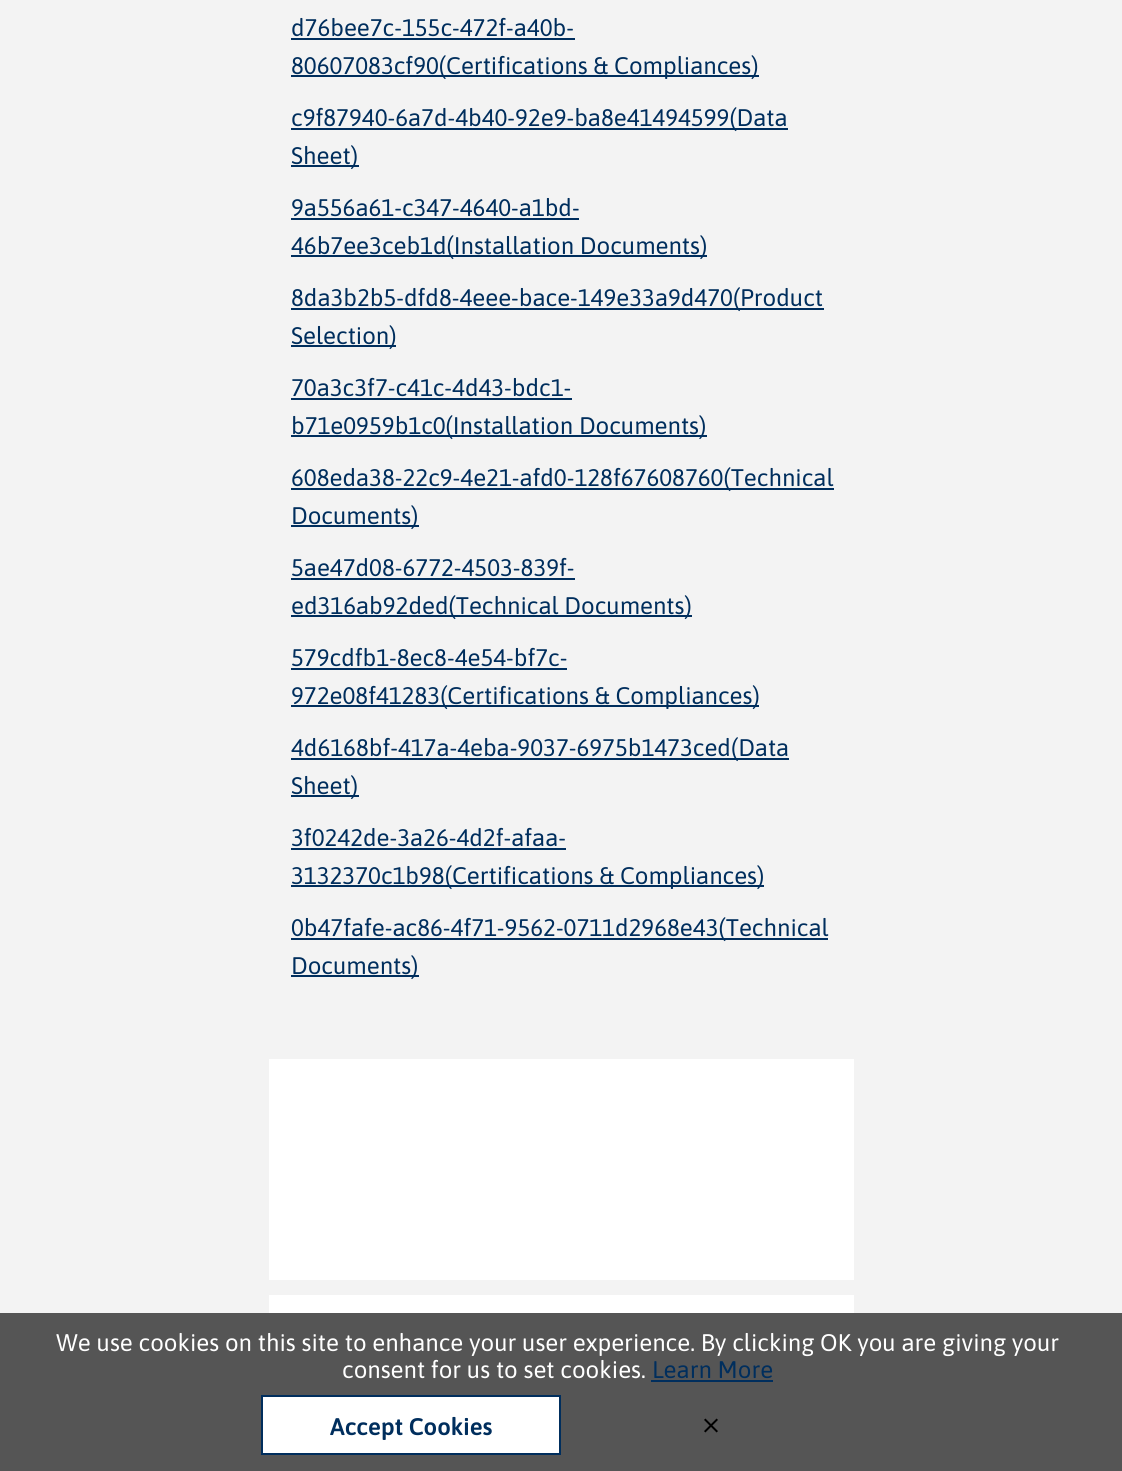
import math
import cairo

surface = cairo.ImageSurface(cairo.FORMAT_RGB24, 1122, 1471)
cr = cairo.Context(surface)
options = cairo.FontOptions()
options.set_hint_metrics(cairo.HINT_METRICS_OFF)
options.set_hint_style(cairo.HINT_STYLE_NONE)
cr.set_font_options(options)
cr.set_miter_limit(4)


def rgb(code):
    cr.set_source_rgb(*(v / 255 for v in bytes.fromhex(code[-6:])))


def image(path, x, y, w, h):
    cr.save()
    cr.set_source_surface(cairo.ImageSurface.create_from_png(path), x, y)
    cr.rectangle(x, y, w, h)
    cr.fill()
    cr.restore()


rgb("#f3f3f3")
cr.paint()
for x, y, w, h, color in [
    (291, 38, 284, 2, "#002e5d"),
    (291, 75, 468, 2, "#002e5d"),
    (291, 128, 497, 2, "#002e5d"),
    (291, 165, 68, 2, "#002e5d"),
    (291, 218, 288, 2, "#002e5d"),
    (291, 255, 416, 2, "#002e5d"),
    (291, 308, 533, 2, "#002e5d"),
    (291, 345, 105, 2, "#002e5d"),
    (291, 398, 281, 2, "#002e5d"),
    (291, 435, 416, 2, "#002e5d"),
    (291, 488, 543, 2, "#002e5d"),
    (291, 525, 128, 2, "#002e5d"),
    (291, 578, 284, 2, "#002e5d"),
    (291, 615, 401, 2, "#002e5d"),
    (291, 668, 276, 2, "#002e5d"),
    (291, 705, 468, 2, "#002e5d"),
    (291, 758, 498, 2, "#002e5d"),
    (291, 795, 68, 2, "#002e5d"),
    (291, 848, 275, 2, "#002e5d"),
    (291, 885, 473, 2, "#002e5d"),
    (291, 938, 537, 2, "#002e5d"),
    (291, 975, 128, 2, "#002e5d"),
    (269, 1059, 585, 221, "#ffffff"),
    (269, 1295, 585, 18, "#ffffff"),
    (0, 1313, 1122, 158, "#555555"),
    (651, 1380, 122, 2, "#002e5d"),
]:
    rgb(color)
    cr.rectangle(x, y, w, h)
    cr.fill()
rgb("#ffffff")
cr.rectangle(262, 1396, 298, 58)
cr.fill_preserve()
rgb("#002e5d")
cr.stroke()
image("img/1.png", 704, 1418, 14, 15)
cr.select_font_face("Asap")
cr.set_font_size(24)
for x, y, s in [
    (291, 36, "d76bee7c-155c-472f-a40b-"),
    (291, 74, "80607083cf90(Certifications & Compliances)"),
    (291, 126, "c9f87940-6a7d-4b40-92e9-ba8e41494599(Data"),
    (291, 164, "Sheet)"),
    (291, 216, "9a556a61-c347-4640-a1bd-"),
    (291, 254, "46b7ee3ceb1d(Installation Documents)"),
    (291, 306, "8da3b2b5-dfd8-4eee-bace-149e33a9d470(Product"),
    (291, 344, "Selection)"),
    (291, 396, "70a3c3f7-c41c-4d43-bdc1-"),
    (291, 434, "b71e0959b1c0(Installation Documents)"),
    (291, 486, "608eda38-22c9-4e21-afd0-128f67608760(Technical"),
    (291, 524, "Documents)"),
    (291, 576, "5ae47d08-6772-4503-839f-"),
    (291, 614, "ed316ab92ded(Technical Documents)"),
    (291, 666, "579cdfb1-8ec8-4e54-bf7c-"),
    (291, 704, "972e08f41283(Certifications & Compliances)"),
    (291, 756, "4d6168bf-417a-4eba-9037-6975b1473ced(Data"),
    (291, 794, "Sheet)"),
    (291, 846, "3f0242de-3a26-4d2f-afaa-"),
    (291, 884, "3132370c1b98(Certifications & Compliances)"),
    (291, 936, "0b47fafe-ac86-4f71-9562-0711d2968e43(Technical"),
    (291, 974, "Documents)"),
]:
    cr.move_to(x, y)
    cr.show_text(s)
rgb("#ffffff")
cr.move_to(56, 1351)
cr.show_text("We use cookies on this site to enhance your user experience. By clicking OK you are giving your")
cr.move_to(342, 1378)
cr.show_text("consent for us to set cookies.")
rgb("#002e5d")
cr.move_to(652, 1378)
cr.show_text("Learn More")
cr.select_font_face("Asap SemiBold")
cr.move_to(330, 1435)
cr.show_text("Accept Cookies")
surface.write_to_png("page.png")
